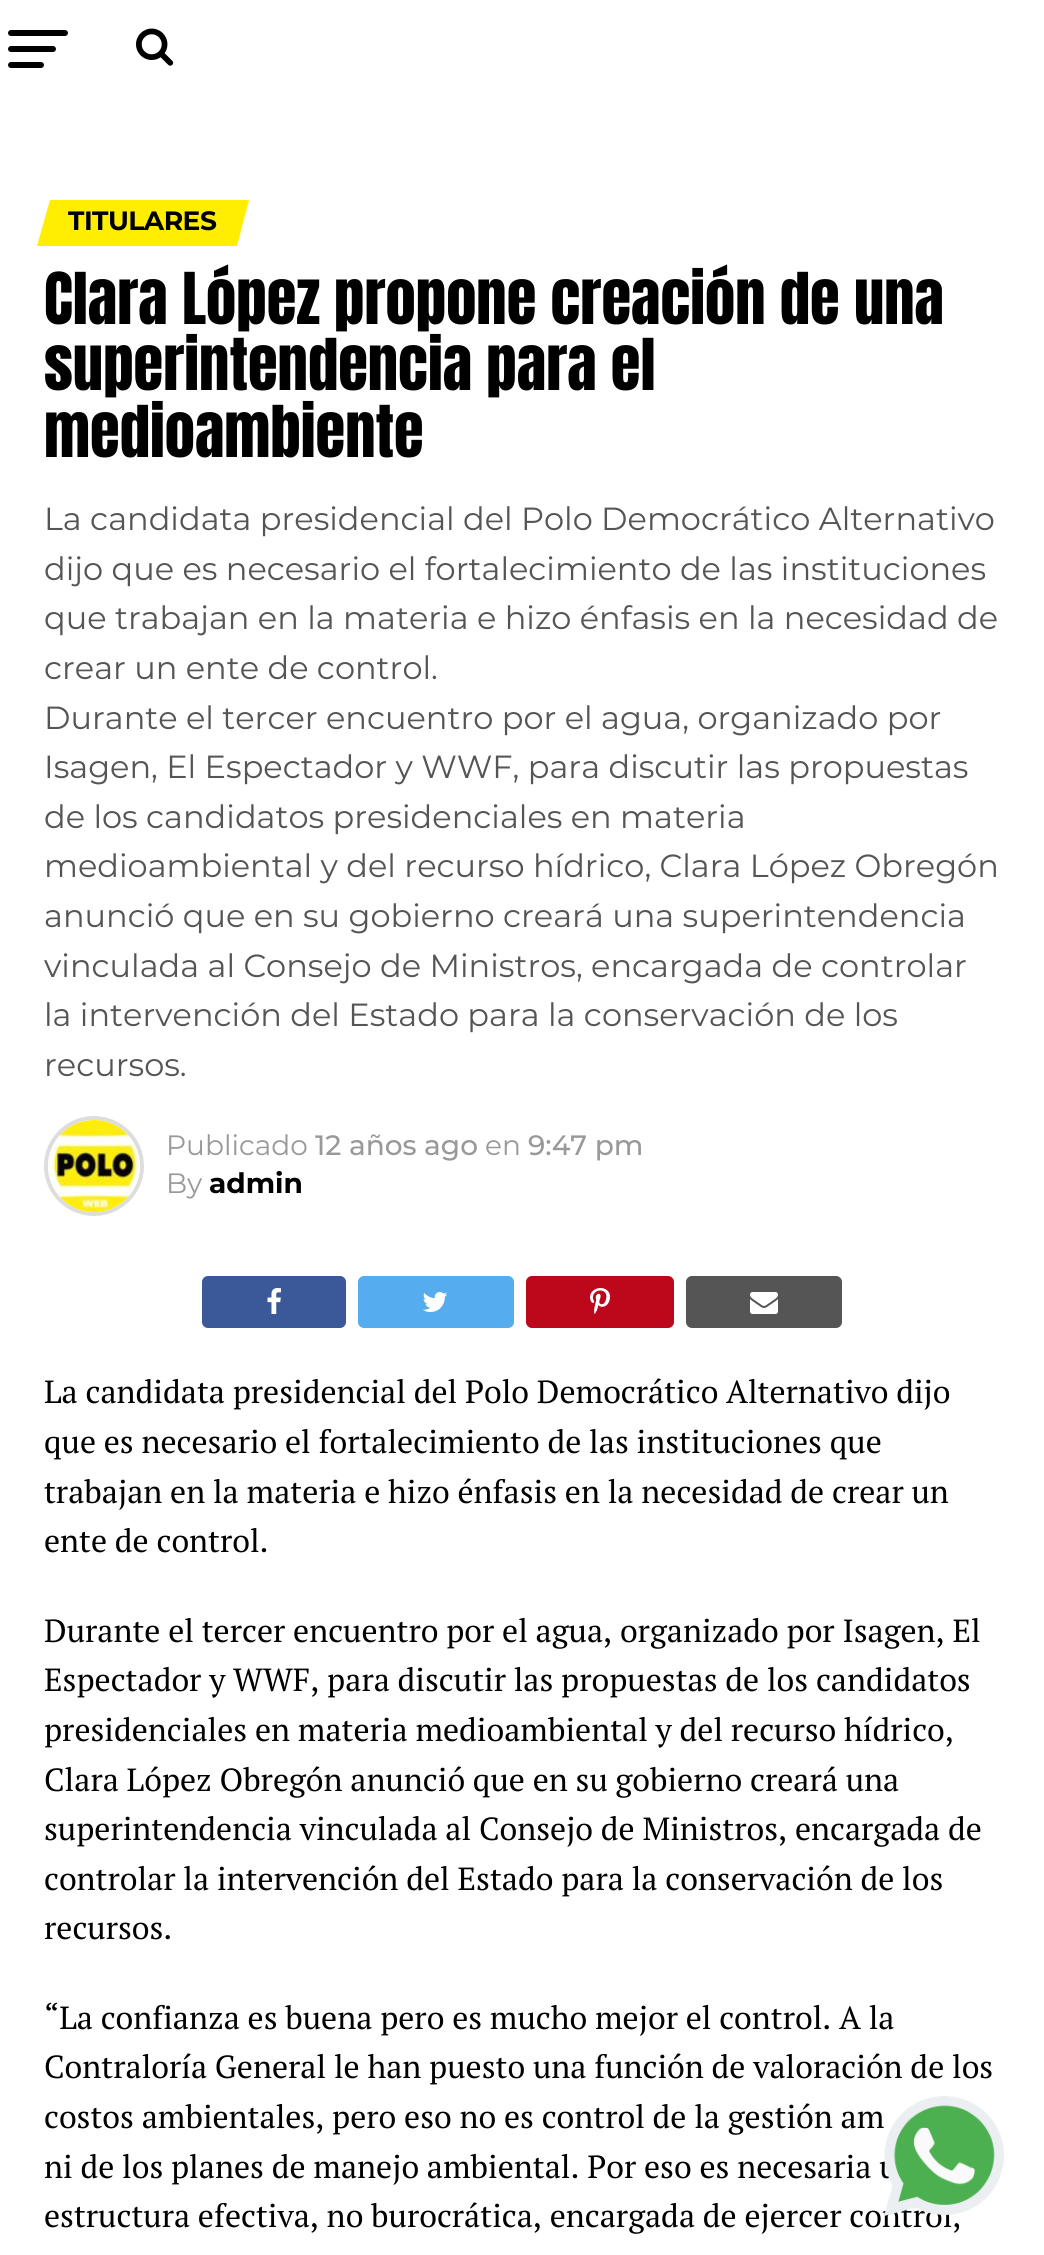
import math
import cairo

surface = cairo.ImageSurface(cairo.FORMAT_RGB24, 1044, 2255)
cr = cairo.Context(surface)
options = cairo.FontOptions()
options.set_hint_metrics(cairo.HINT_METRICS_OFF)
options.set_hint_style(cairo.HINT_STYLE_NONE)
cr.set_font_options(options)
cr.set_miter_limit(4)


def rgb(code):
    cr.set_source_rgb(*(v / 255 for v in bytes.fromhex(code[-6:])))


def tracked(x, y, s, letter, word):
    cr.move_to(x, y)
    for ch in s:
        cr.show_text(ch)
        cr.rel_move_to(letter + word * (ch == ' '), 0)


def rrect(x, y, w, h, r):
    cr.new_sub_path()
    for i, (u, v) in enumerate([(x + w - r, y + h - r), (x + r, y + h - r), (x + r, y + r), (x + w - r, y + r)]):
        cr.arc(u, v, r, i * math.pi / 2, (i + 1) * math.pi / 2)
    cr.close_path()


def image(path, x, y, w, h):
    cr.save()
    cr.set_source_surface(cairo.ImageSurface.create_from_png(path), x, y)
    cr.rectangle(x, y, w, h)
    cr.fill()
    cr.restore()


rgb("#ffffff")
cr.paint()
rgb("#000000")
rrect(8, 30, 60, 6, 3)
cr.fill()
rrect(8, 46, 48, 6, 3)
cr.fill()
rrect(8, 62, 36, 6, 3)
cr.fill()
image("img/1.png", 136, 28, 38, 38)
rgb("#ffee00")
cr.new_path()
cr.move_to(50, 200)
cr.line_to(249, 200)
cr.line_to(237, 246)
cr.line_to(37, 246)
cr.close_path()
cr.fill()
cr.arc(94, 1166, 48, 0, 2 * math.pi)
rgb("#dddddd")
cr.set_line_width(4)
cr.stroke()
image("img/2.png", 48, 1120, 92, 92)
rgb("#3b5998")
rrect(202, 1276, 144, 52, 6)
cr.fill()
image("img/3.png", 267, 1288, 14, 26)
rgb("#55acee")
rrect(358, 1276, 156, 52, 6)
cr.fill()
image("img/4.png", 422, 1292, 26, 20)
rgb("#bd081c")
rrect(526, 1276, 148, 52, 6)
cr.fill()
image("img/5.png", 590, 1288, 20, 26)
rgb("#555555")
rrect(686, 1276, 156, 52, 6)
cr.fill()
image("img/6.png", 750, 1292, 28, 22)
cr.select_font_face("Montserrat", cairo.FONT_SLANT_NORMAL, cairo.FONT_WEIGHT_BOLD)
cr.set_font_size(26.5)
rgb("#000000")
tracked(68, 230, "TITULARES", -0.5, 0)
cr.select_font_face("Anton")
cr.set_font_size(60.75)
for x, y, s in [
    (44, 324, "Clara López propone creación de una"),
    (44, 390, "superintendencia para el"),
    (44, 457, "medioambiente"),
]:
    cr.move_to(x, y)
    cr.show_text(s)
cr.select_font_face("Montserrat")
cr.set_font_size(32)
rgb("#555555")
for x, y, s in [
    (44, 530, "La candidata presidencial del Polo Democrático Alternativo"),
    (44, 580, "dijo que es necesario el fortalecimiento de las instituciones"),
    (44, 629, "que trabajan en la materia e hizo énfasis en la necesidad de"),
    (44, 679, "crear un ente de control."),
    (44, 729, "Durante el tercer encuentro por el agua, organizado por"),
    (44, 778, "Isagen, El Espectador y WWF, para discutir las propuestas"),
    (44, 828, "de los candidatos presidenciales en materia"),
    (44, 877, "medioambiental y del recurso hídrico, Clara López Obregón"),
    (44, 927, "anunció que en su gobierno creará una superintendencia"),
    (44, 977, "vinculada al Consejo de Ministros, encargada de controlar"),
    (44, 1026, "la intervención del Estado para la conservación de los"),
    (44, 1076, "recursos."),
]:
    cr.move_to(x, y)
    cr.show_text(s)
cr.set_font_size(28)
rgb("#999999")
cr.move_to(166, 1155)
cr.show_text("Publicado")
cr.select_font_face("Montserrat Medium")
cr.move_to(315, 1155)
cr.show_text("12 años ago")
cr.select_font_face("Montserrat")
cr.move_to(485, 1155)
cr.show_text("en")
cr.select_font_face("Montserrat Medium")
cr.move_to(528, 1155)
cr.show_text("9:47 pm")
cr.select_font_face("Montserrat")
cr.move_to(166, 1193)
cr.show_text("By")
cr.select_font_face("Montserrat", cairo.FONT_SLANT_NORMAL, cairo.FONT_WEIGHT_BOLD)
rgb("#000000")
cr.move_to(209, 1193)
cr.show_text("admin")
cr.select_font_face("PT Serif")
cr.set_font_size(32)
for x, y, s in [
    (44, 1403, "La candidata presidencial del Polo Democrático Alternativo dijo"),
    (44, 1453, "que es necesario el fortalecimiento de las instituciones que"),
    (44, 1503, "trabajan en la materia e hizo énfasis en la necesidad de crear un"),
    (44, 1552, "ente de control."),
    (44, 1642, "Durante el tercer encuentro por el agua, organizado por Isagen, El"),
    (44, 1691, "Espectador y WWF, para discutir las propuestas de los candidatos"),
    (44, 1741, "presidenciales en materia medioambiental y del recurso hídrico,"),
    (44, 1791, "Clara López Obregón anunció que en su gobierno creará una"),
    (44, 1840, "superintendencia vinculada al Consejo de Ministros, encargada de"),
    (44, 1890, "controlar la intervención del Estado para la conservación de los"),
    (44, 1939, "recursos."),
    (44, 2029, "“La confianza es buena pero es mucho mejor el control. A la"),
    (44, 2078, "Contraloría General le han puesto una función de valoración de los"),
    (44, 2128, "costos ambientales, pero eso no es control de la gestión am"),
    (44, 2178, "ni de los planes de manejo ambiental. Por eso es necesaria u"),
    (44, 2227, "estructura efectiva, no burocrática, encargada de ejercer control,"),
]:
    cr.move_to(x, y)
    cr.show_text(s)
image("img/7.png", 884, 2096, 120, 120)
surface.write_to_png("page.png")
